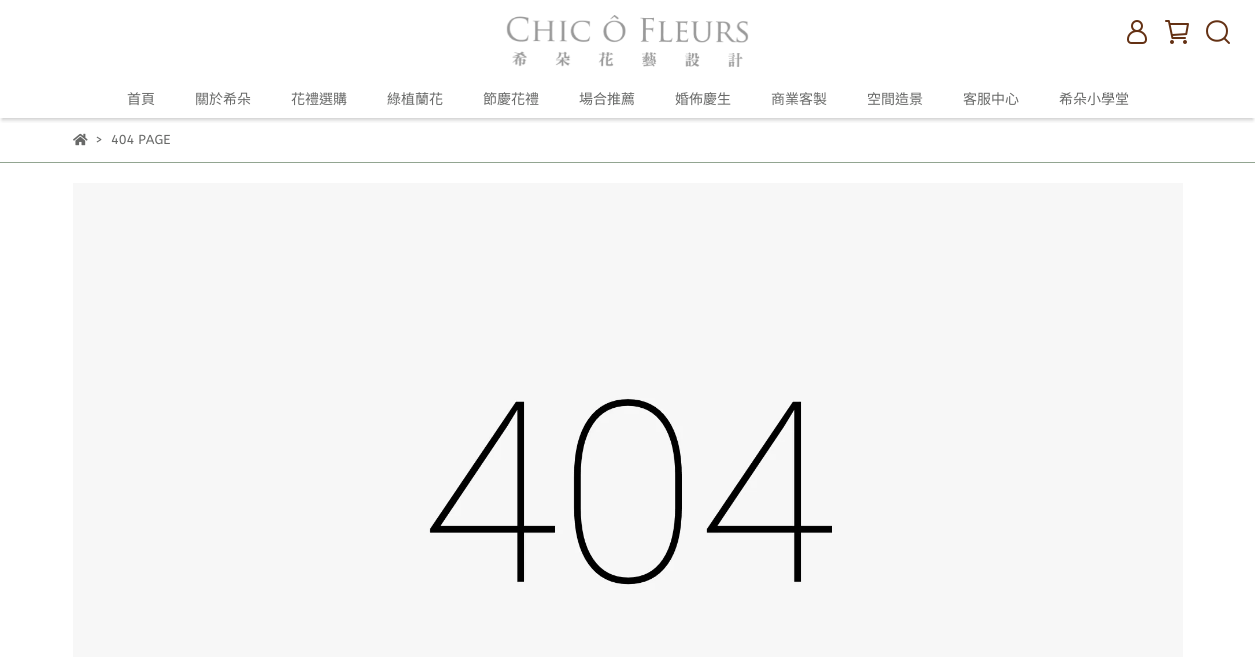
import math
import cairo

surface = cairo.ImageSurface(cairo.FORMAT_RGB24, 1255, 657)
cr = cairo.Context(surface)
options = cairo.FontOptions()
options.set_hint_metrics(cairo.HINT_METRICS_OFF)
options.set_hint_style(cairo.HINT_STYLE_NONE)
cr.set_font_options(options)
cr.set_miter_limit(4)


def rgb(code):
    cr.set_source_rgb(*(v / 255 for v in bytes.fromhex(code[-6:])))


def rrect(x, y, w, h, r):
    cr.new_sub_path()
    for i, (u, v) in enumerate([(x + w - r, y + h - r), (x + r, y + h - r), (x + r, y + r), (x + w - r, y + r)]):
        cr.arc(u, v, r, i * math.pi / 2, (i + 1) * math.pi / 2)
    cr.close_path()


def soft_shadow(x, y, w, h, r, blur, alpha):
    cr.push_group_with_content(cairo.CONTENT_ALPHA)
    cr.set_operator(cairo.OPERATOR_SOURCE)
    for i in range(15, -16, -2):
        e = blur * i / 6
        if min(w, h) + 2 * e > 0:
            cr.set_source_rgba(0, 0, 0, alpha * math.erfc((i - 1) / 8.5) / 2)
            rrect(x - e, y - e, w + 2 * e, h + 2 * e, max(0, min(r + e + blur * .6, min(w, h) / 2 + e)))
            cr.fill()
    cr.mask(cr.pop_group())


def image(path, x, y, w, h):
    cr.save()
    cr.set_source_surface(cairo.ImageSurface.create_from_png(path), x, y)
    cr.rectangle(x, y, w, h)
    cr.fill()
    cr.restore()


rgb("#ffffff")
cr.paint()
image("img/1.png", 506, 15, 243, 52)
image("img/2.png", 1127, 20, 20, 24)
image("img/3.png", 1165, 20, 24, 24)
cr.new_path()
cr.move_to(1227, 31)
cr.curve_to(1227, 44, 1207, 44, 1207, 31)
cr.curve_to(1207, 18, 1227, 18, 1227, 31)
cr.close_path()
cr.move_to(1225, 39)
cr.line_to(1229, 43)
rgb("#643114")
cr.set_line_cap(cairo.LINE_CAP_ROUND)
cr.set_line_join(cairo.LINE_JOIN_ROUND)
cr.stroke()
cr.save()
cr.rectangle(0, 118, 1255, 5)
cr.clip()
rgb("#000000")
soft_shadow(2, 87, 1251, 33, 0, 2, 0.2)
cr.restore()
rgb("#92a591")
cr.rectangle(0, 162, 1255, 1)
cr.fill()
image("img/4.png", 73, 133, 15, 13)
image("img/5.png", 73, 183, 1110, 474)
cr.select_font_face("Noto Sans CJK TC")
cr.set_font_size(14)
rgb("#686968")
for x, y, s in [
    (127, 104, "首頁"),
    (195, 104, "關於希朵"),
    (291, 104, "花禮選購"),
    (387, 104, "綠植蘭花"),
    (483, 104, "節慶花禮"),
    (579, 104, "場合推薦"),
    (675, 104, "婚佈慶生"),
    (771, 104, "商業客製"),
    (867, 104, "空間造景"),
    (963, 104, "客服中心"),
    (1059, 104, "希朵小學堂"),
]:
    cr.move_to(x, y)
    cr.show_text(s)
cr.select_font_face("ABeeZee")
cr.set_font_size(13)
cr.move_to(95, 144)
cr.show_text(">")
cr.move_to(111, 144)
cr.show_text("404 PAGE")
surface.write_to_png("page.png")
